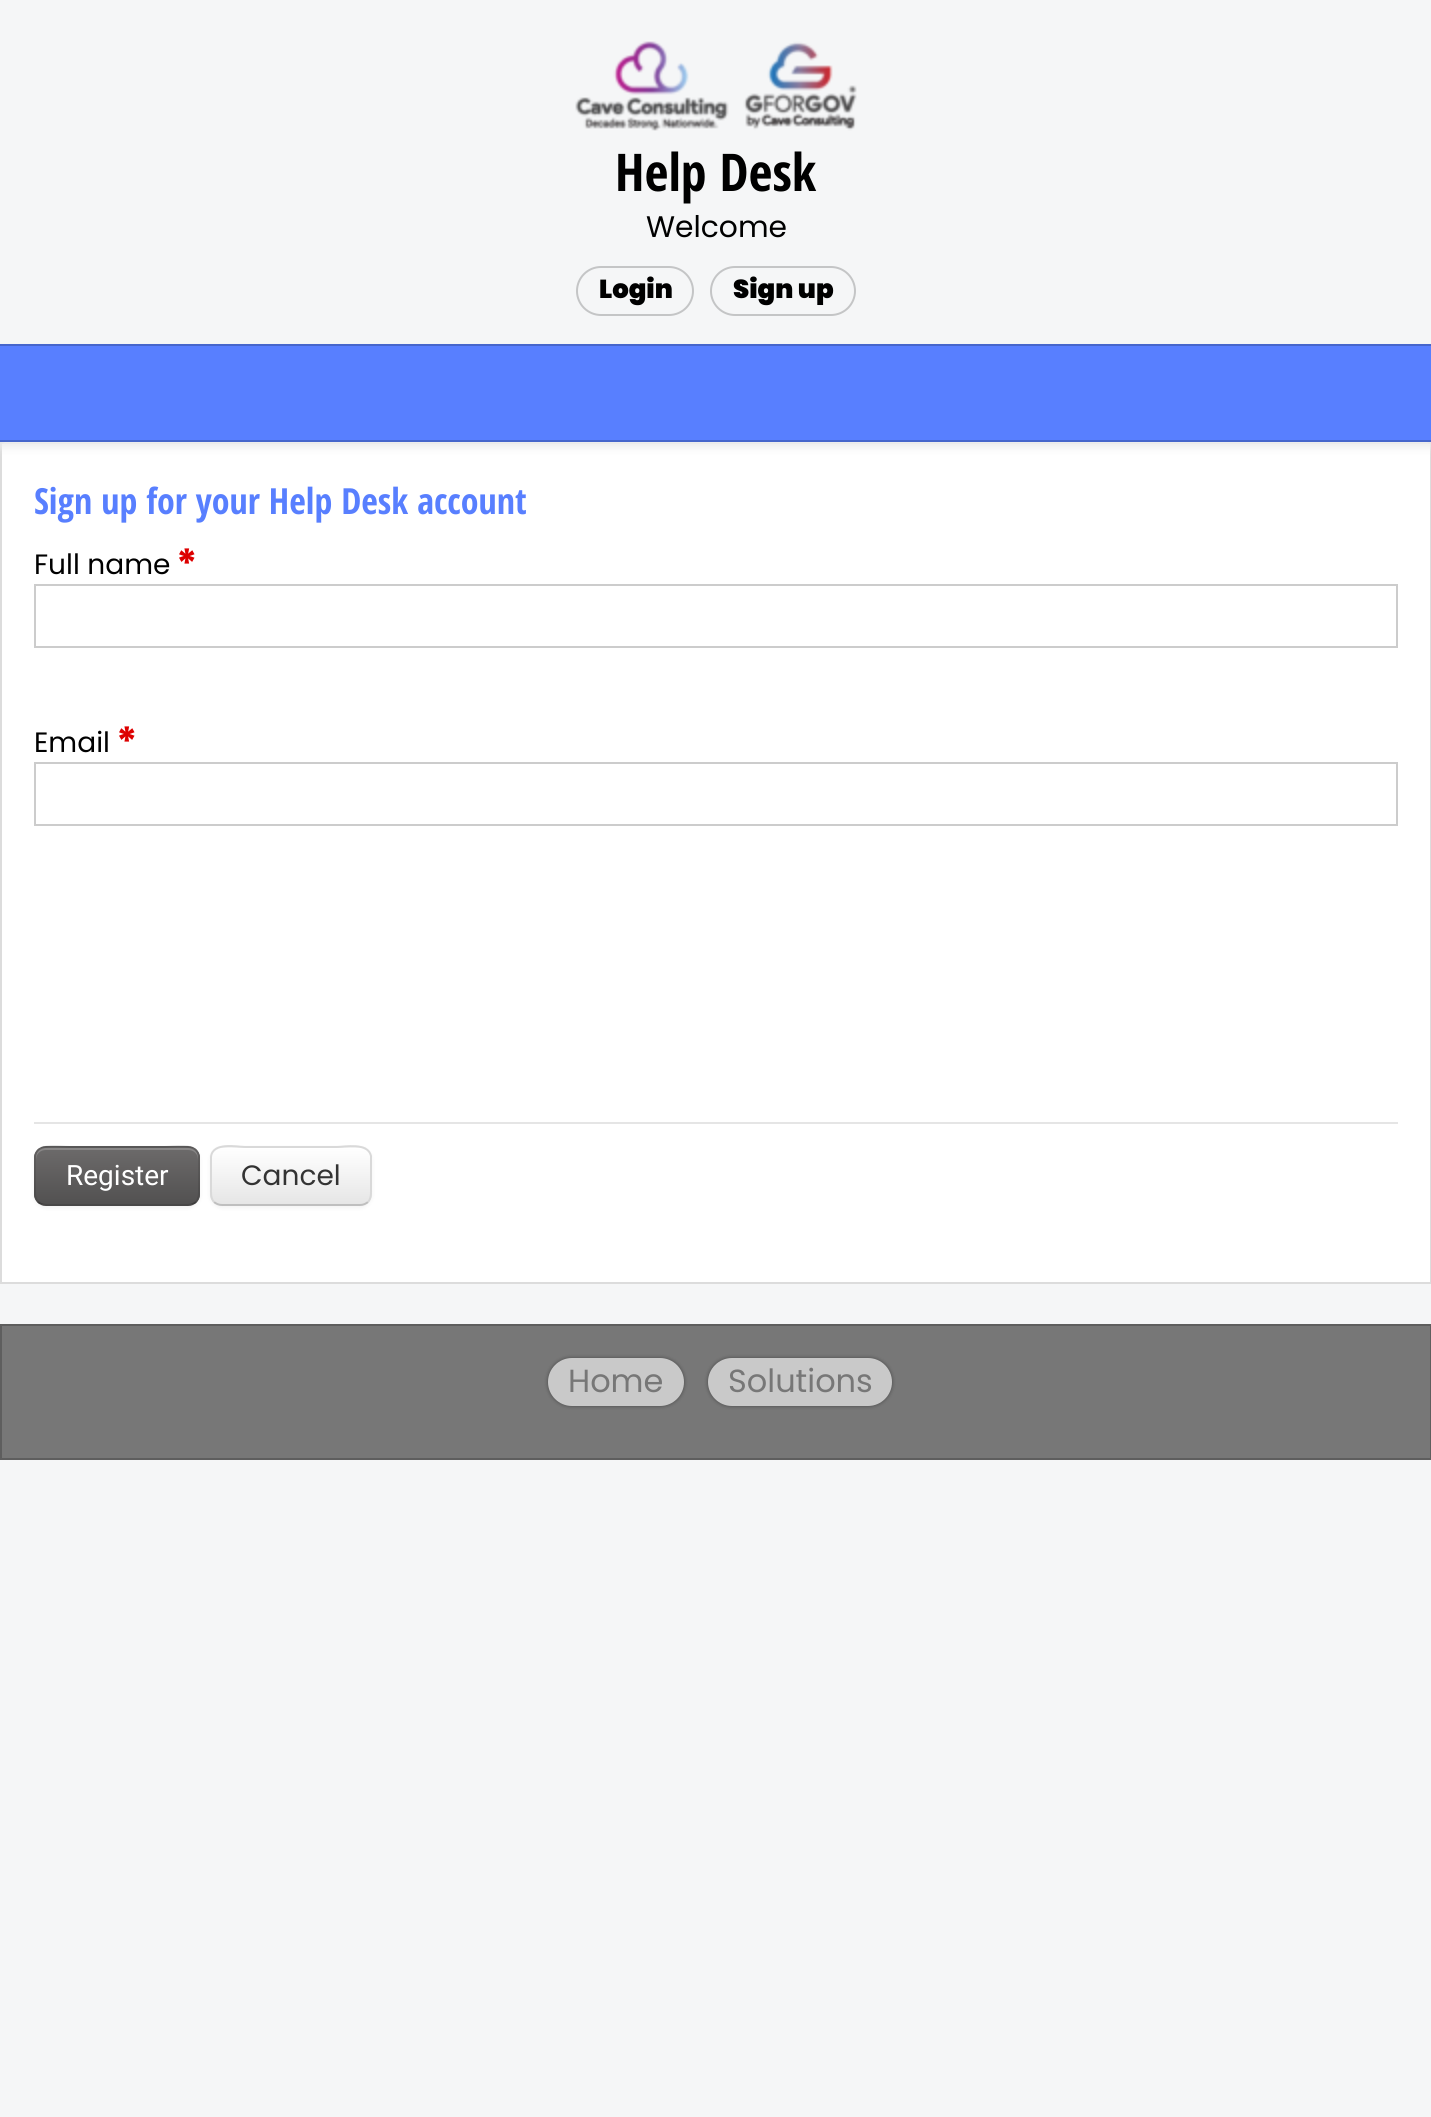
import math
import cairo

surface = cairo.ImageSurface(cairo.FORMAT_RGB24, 1431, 2117)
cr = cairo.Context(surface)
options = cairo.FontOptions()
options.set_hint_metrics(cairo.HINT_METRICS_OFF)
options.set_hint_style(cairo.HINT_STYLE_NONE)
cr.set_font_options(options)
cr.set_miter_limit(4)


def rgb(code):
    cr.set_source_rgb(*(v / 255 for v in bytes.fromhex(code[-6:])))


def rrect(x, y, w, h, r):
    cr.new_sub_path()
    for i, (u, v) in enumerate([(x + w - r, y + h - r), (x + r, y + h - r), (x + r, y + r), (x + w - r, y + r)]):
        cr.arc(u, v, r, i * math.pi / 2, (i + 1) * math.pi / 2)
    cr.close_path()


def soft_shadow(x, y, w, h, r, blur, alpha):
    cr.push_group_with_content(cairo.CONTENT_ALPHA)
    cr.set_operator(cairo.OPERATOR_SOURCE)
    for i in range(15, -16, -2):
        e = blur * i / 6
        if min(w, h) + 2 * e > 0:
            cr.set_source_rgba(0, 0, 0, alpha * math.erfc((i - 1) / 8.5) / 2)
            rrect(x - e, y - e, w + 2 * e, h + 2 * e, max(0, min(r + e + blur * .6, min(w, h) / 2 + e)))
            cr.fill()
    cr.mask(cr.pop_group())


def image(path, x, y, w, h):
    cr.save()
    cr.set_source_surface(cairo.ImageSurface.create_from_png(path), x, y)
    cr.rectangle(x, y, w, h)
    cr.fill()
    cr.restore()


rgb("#f5f6f7")
cr.paint()
image("img/1.png", 575, 41, 282, 90)
rrect(577, 267, 116, 48, 24)
rgb("#c4c5c6")
cr.stroke()
rrect(711, 267, 144, 48, 24)
cr.stroke()
rgb("#ffffff")
cr.rectangle(1, 443, 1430, 840)
cr.fill_preserve()
rgb("#dcdcdc")
cr.stroke()
rgb("#eeeeee")
soft_shadow(0, 350, 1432, 98, 0, 4, 1)
for x, y, w, h, color in [
    (0, 346, 1431, 94, "#587fff"),
    (0, 344, 1431, 2, "#4666cc"),
    (0, 440, 1431, 2, "#4666cc"),
]:
    rgb(color)
    cr.rectangle(x, y, w, h)
    cr.fill()
cr.rectangle(35, 585, 1362, 62)
rgb("#cccccc")
cr.stroke()
cr.rectangle(35, 763, 1362, 62)
cr.stroke()
rgb("#e5e5e5")
cr.rectangle(34, 1122, 1364, 2)
cr.fill()
rgb("#000000")
soft_shadow(34, 1148, 166, 60, 12, 2, 0.05)
rgb("#626060")
rrect(34, 1146, 166, 60, 12)
cr.fill()
cr.save()
rrect(34, 1146, 166, 60, 12)
cr.clip()
gradient = cairo.LinearGradient(117, 1148, 117, 1204)
gradient.add_color_stop_rgba(0, 0.424, 0.416, 0.416, 1)
gradient.add_color_stop_rgba(1, 0.322, 0.318, 0.318, 1)
cr.set_source(gradient)
cr.rectangle(34, 1148, 166, 56)
cr.fill()
cr.restore()
cr.set_source_rgba(1, 1, 1, 0.2)
cr.new_path()
cr.move_to(46, 1150)
cr.line_to(188, 1150)
cr.curve_to(194, 1150, 198, 1154, 198, 1160)
cr.line_to(198, 1158)
cr.curve_to(198, 1152, 194, 1148, 188, 1148)
cr.line_to(46, 1148)
cr.curve_to(40, 1148, 36, 1152, 36, 1158)
cr.line_to(36, 1160)
cr.curve_to(36, 1154, 40, 1150, 46, 1150)
cr.close_path()
cr.fill()
cr.new_path()
cr.move_to(196, 1202)
cr.curve_to(193.5, 1204, 191, 1205, 188, 1205)
cr.line_to(46, 1205)
cr.curve_to(43, 1205, 40.5, 1204, 38, 1202)
cr.set_source_rgba(0, 0, 0, 0.25)
cr.stroke()
cr.new_path()
cr.move_to(38, 1202)
cr.curve_to(34.5, 1198, 35, 1193, 35, 1188)
cr.line_to(35, 1157)
cr.curve_to(36.5, 1141.5, 62.5, 1147, 69.5, 1147)
cr.line_to(164.5, 1147)
cr.curve_to(171.5, 1147, 196, 1141.5, 199, 1156)
cr.line_to(199, 1188)
cr.curve_to(199, 1193, 199.5, 1198, 196, 1202)
cr.set_source_rgba(0, 0, 0, 0.1)
cr.stroke()
rgb("#000000")
soft_shadow(210, 1148, 162, 60, 12, 2, 0.05)
rgb("#f5f5f5")
rrect(210, 1146, 162, 60, 12)
cr.fill()
cr.save()
rrect(210, 1146, 162, 60, 12)
cr.clip()
gradient = cairo.LinearGradient(291, 1148, 291, 1204)
gradient.add_color_stop_rgba(0, 1, 1, 1, 1)
gradient.add_color_stop_rgba(1, 0.902, 0.902, 0.902, 1)
cr.set_source(gradient)
cr.rectangle(210, 1148, 162, 56)
cr.fill()
cr.restore()
cr.new_path()
cr.move_to(368, 1202)
cr.curve_to(365.5, 1204, 363, 1205, 360, 1205)
cr.line_to(222, 1205)
cr.curve_to(219, 1205, 216.5, 1204, 214, 1202)
rgb("#bfbfbf")
cr.stroke()
cr.new_path()
cr.move_to(214, 1202)
cr.curve_to(210.5, 1198, 211, 1193, 211, 1188)
cr.line_to(211, 1157)
cr.curve_to(212.5, 1141.5, 237.5, 1147, 245, 1147)
cr.line_to(337, 1147)
cr.curve_to(344.5, 1147, 368, 1142, 371, 1156)
cr.line_to(371, 1188)
cr.curve_to(371, 1193, 371.5, 1198, 368, 1202)
rgb("#d9d9d9")
cr.stroke()
rgb("#777777")
cr.rectangle(1, 1325, 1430, 134)
cr.fill_preserve()
rgb("#5e5e5e")
cr.stroke()
rgb("#494949")
soft_shadow(548, 1358, 136, 48, 24, 2, 1)
rgb("#c9c9c9")
rrect(548, 1358, 136, 48, 24)
cr.fill()
rgb("#494949")
soft_shadow(708, 1358, 184, 48, 24, 2, 1)
rgb("#c9c9c9")
rrect(708, 1358, 184, 48, 24)
cr.fill()
cr.select_font_face("Open Sans Condensed", cairo.FONT_SLANT_NORMAL, cairo.FONT_WEIGHT_BOLD)
cr.set_font_size(52)
rgb("#000000")
cr.move_to(615, 191)
cr.show_text("Help Desk")
cr.select_font_face("Poppins")
cr.set_font_size(29.75)
cr.move_to(646, 237)
cr.show_text("Welcome")
cr.select_font_face("Poppins Black")
cr.set_font_size(26)
cr.move_to(599, 298)
cr.show_text("Login")
cr.move_to(733, 298)
cr.show_text("Sign up")
cr.select_font_face("Open Sans Condensed", cairo.FONT_SLANT_NORMAL, cairo.FONT_WEIGHT_BOLD)
cr.set_font_size(36)
rgb("#587fff")
cr.move_to(34, 514)
cr.show_text("Sign up for your Help Desk account")
cr.select_font_face("Poppins")
cr.set_font_size(28)
rgb("#000000")
cr.move_to(34, 574)
cr.show_text("Full name")
cr.select_font_face("Poppins", cairo.FONT_SLANT_NORMAL, cairo.FONT_WEIGHT_BOLD)
cr.set_font_size(40)
rgb("#dd0000")
cr.move_to(176, 578)
cr.show_text("*")
cr.select_font_face("Poppins")
cr.set_font_size(28)
rgb("#000000")
cr.move_to(34, 752)
cr.show_text("Email")
cr.select_font_face("Poppins", cairo.FONT_SLANT_NORMAL, cairo.FONT_WEIGHT_BOLD)
cr.set_font_size(40)
rgb("#dd0000")
cr.move_to(116, 756)
cr.show_text("*")
cr.select_font_face("Roboto")
cr.set_font_size(28)
rgb("#ffffff")
cr.move_to(66, 1185)
cr.show_text("Register")
cr.select_font_face("Poppins")
rgb("#333333")
cr.move_to(241, 1185)
cr.show_text("Cancel")
cr.set_font_size(32)
rgb("#777777")
cr.move_to(568, 1392)
cr.show_text("Home")
cr.move_to(728, 1392)
cr.show_text("Solutions")
surface.write_to_png("page.png")
